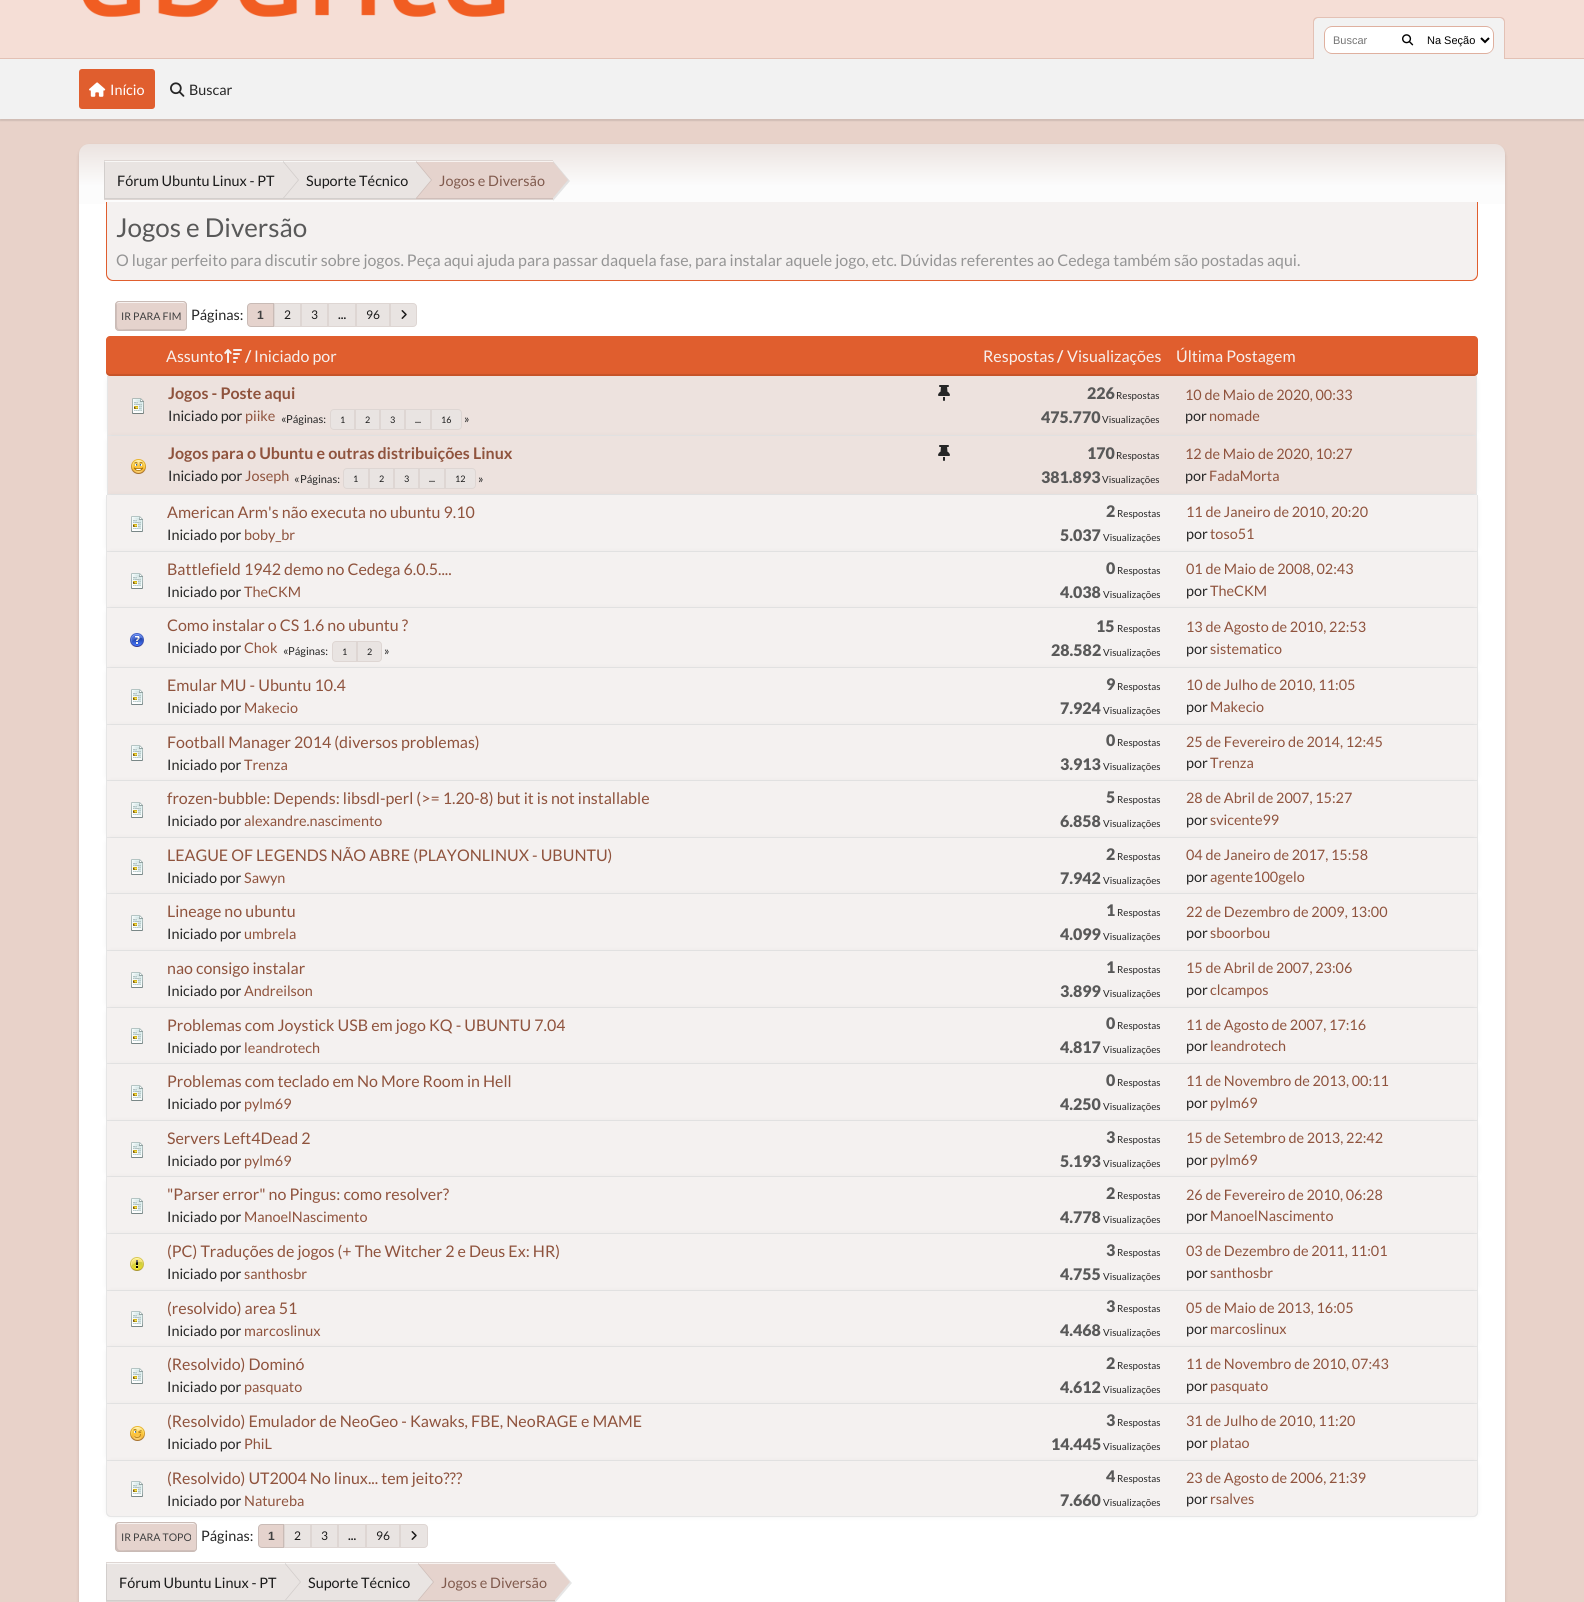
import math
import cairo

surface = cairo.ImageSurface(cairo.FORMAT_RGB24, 1584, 1602)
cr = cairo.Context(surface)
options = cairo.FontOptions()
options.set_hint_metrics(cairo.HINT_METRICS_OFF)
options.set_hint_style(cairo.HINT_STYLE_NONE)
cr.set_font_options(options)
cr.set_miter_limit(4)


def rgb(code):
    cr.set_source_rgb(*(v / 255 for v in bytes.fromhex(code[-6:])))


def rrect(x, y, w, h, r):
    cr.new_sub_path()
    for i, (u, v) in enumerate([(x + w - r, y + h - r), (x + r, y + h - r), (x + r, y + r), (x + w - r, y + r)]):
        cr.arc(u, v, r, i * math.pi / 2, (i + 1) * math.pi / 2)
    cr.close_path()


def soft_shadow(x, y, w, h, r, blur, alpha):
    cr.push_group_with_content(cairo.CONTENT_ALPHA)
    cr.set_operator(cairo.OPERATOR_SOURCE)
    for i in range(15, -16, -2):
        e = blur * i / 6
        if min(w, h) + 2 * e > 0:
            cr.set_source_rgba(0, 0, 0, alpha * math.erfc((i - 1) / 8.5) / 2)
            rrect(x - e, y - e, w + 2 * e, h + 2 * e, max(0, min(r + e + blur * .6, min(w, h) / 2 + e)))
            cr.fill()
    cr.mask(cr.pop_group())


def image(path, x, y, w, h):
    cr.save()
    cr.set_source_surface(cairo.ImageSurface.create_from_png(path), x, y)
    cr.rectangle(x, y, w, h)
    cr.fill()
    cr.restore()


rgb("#e8d2c9")
cr.paint()
rgb("#f5ded6")
cr.rectangle(0, 0, 1584, 58)
cr.fill()
rgb("#e3c1b5")
cr.rectangle(0, 58, 1584, 1)
cr.fill()
image("img/1.png", 83, 0, 422, 18)
rgb("#000000")
soft_shadow(0, 61, 1584, 60, 0, 0.5, 0.1)
rgb("#f2f2f2")
cr.new_path()
cr.move_to(1318, 18)
cr.line_to(1500, 18)
cr.curve_to(1502, 18, 1504, 20, 1504, 22)
cr.line_to(1504, 59)
cr.line_to(1314, 59)
cr.line_to(1314, 22)
cr.curve_to(1314, 20, 1316, 18, 1318, 18)
cr.close_path()
cr.fill()
rgb("#e3c1b5")
cr.set_fill_rule(cairo.FILL_RULE_EVEN_ODD)
cr.new_path()
cr.move_to(1318, 17)
cr.line_to(1500, 17)
cr.curve_to(1503, 17, 1505, 19, 1505, 22)
cr.line_to(1505, 59)
cr.line_to(1313, 59)
cr.line_to(1313, 22)
cr.curve_to(1313, 19, 1315, 17, 1318, 17)
cr.close_path()
cr.move_to(1318, 18)
cr.line_to(1500, 18)
cr.curve_to(1502, 18, 1504, 20, 1504, 22)
cr.line_to(1504, 59)
cr.line_to(1314, 59)
cr.line_to(1314, 22)
cr.curve_to(1314, 20, 1316, 18, 1318, 18)
cr.close_path()
cr.fill()
rgb("#ffffff")
cr.new_path()
cr.move_to(1332, 27)
cr.line_to(1392, 27)
cr.line_to(1392, 53)
cr.line_to(1332, 53)
cr.curve_to(1328, 53, 1325, 50, 1325, 46)
cr.line_to(1325, 34)
cr.curve_to(1325, 30, 1328, 27, 1332, 27)
cr.close_path()
cr.fill()
rgb("#dfb09f")
cr.new_path()
cr.move_to(1332, 26)
cr.line_to(1392, 26)
cr.line_to(1392, 54)
cr.line_to(1332, 54)
cr.curve_to(1328, 54, 1324, 50, 1324, 46)
cr.line_to(1324, 34)
cr.curve_to(1324, 30, 1328, 26, 1332, 26)
cr.close_path()
cr.move_to(1332, 27)
cr.line_to(1392, 27)
cr.line_to(1392, 53)
cr.line_to(1332, 53)
cr.curve_to(1328, 53, 1325, 50, 1325, 46)
cr.line_to(1325, 34)
cr.curve_to(1325, 30, 1328, 27, 1332, 27)
cr.close_path()
cr.fill()
for x, y, w, h, color in [
    (1392, 27, 31, 26, "#ffffff"),
    (1392, 26, 31, 1, "#dfb09f"),
    (1392, 53, 31, 1, "#dfb09f"),
]:
    rgb(color)
    cr.rectangle(x, y, w, h)
    cr.fill()
image("img/2.png", 1402, 34, 12, 12)
rgb("#ffffff")
cr.new_path()
cr.move_to(1423, 27)
cr.line_to(1486, 27)
cr.curve_to(1490, 27, 1493, 30, 1493, 34)
cr.line_to(1493, 46)
cr.curve_to(1493, 50, 1490, 53, 1486, 53)
cr.line_to(1423, 53)
cr.close_path()
cr.fill()
rgb("#dfb09f")
cr.new_path()
cr.move_to(1423, 26)
cr.line_to(1486, 26)
cr.curve_to(1490, 26, 1494, 30, 1494, 34)
cr.line_to(1494, 46)
cr.curve_to(1494, 50, 1490, 54, 1486, 54)
cr.line_to(1423, 54)
cr.close_path()
cr.move_to(1423, 27)
cr.line_to(1486, 27)
cr.curve_to(1490, 27, 1493, 30, 1493, 34)
cr.line_to(1493, 46)
cr.curve_to(1493, 50, 1490, 53, 1486, 53)
cr.line_to(1423, 53)
cr.close_path()
cr.fill()
cr.new_path()
cr.move_to(1481, 38)
cr.line_to(1485, 42)
cr.line_to(1489, 38)
rgb("#000000")
cr.stroke()
rgb("#f2f2f2")
cr.rectangle(0, 59, 1584, 60)
cr.fill()
rgb("#e05e2e")
rrect(79, 69, 76, 40, 3)
cr.fill()
image("img/3.png", 89, 82, 17, 15)
image("img/4.png", 170, 82, 15, 15)
rgb("#000000")
soft_shadow(79, 146, 1426, 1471, 10, 1.5, 0.14)
gradient = cairo.LinearGradient(792, 144, 792, 204)
gradient.add_color_stop_rgba(0, 0.922, 0.89, 0.878, 1)
gradient.add_color_stop_rgba(0.7, 0.988, 0.988, 0.988, 1)
cr.set_source(gradient)
cr.new_path()
cr.move_to(89, 144)
cr.line_to(1495, 144)
cr.curve_to(1500.5, 144, 1505, 148.5, 1505, 154)
cr.line_to(1505, 204)
cr.line_to(79, 204)
cr.line_to(79, 154)
cr.curve_to(79, 148.5, 83.5, 144, 89, 144)
cr.close_path()
cr.fill()
rgb("#e9e4e2")
cr.rectangle(104, 162, 312, 37)
cr.fill()
rgb("#f8f7f6")
cr.rectangle(104, 161, 312, 1)
cr.fill()
cr.save()
cr.set_fill_rule(cairo.FILL_RULE_WINDING)
cr.rectangle(104, 161, 179, 38)
cr.clip()
cr.set_source_rgba(0, 0, 0, 0.1)
cr.set_fill_rule(cairo.FILL_RULE_EVEN_ODD)
cr.new_path()
cr.move_to(106, 159)
cr.line_to(382, 159)
cr.line_to(382, 201)
cr.line_to(106, 201)
cr.curve_to(105, 201, 104, 200, 104, 199)
cr.line_to(104, 161)
cr.curve_to(104, 160, 105, 159, 106, 159)
cr.close_path()
cr.move_to(105, 160)
cr.line_to(105, 198)
cr.line_to(284, 198)
cr.line_to(284, 160)
cr.close_path()
cr.fill()
cr.restore()
rgb("#ded6d3")
cr.rectangle(104, 160, 449, 1)
cr.fill()
cr.rectangle(104, 199, 449, 1)
cr.fill()
cr.save()
cr.set_fill_rule(cairo.FILL_RULE_WINDING)
cr.rectangle(283, 161, 133, 38)
cr.clip()
cr.set_source_rgba(0, 0, 0, 0.1)
cr.set_fill_rule(cairo.FILL_RULE_EVEN_ODD)
cr.new_path()
cr.move_to(184, 201)
cr.line_to(184, 159)
cr.line_to(515, 159)
cr.line_to(515, 201)
cr.close_path()
cr.move_to(284, 160)
cr.line_to(284, 198)
cr.line_to(417, 198)
cr.line_to(417, 160)
cr.close_path()
cr.fill()
cr.restore()
rgb("#d2cdcb")
cr.set_fill_rule(cairo.FILL_RULE_WINDING)
cr.new_path()
cr.move_to(284, 198)
cr.line_to(284, 162)
cr.line_to(299, 180)
cr.close_path()
cr.fill()
rgb("#e9e4e2")
cr.new_path()
cr.move_to(283, 198)
cr.line_to(283, 162)
cr.line_to(298, 180)
cr.close_path()
cr.fill()
rgb("#e5d3cd")
cr.rectangle(416, 162, 137, 37)
cr.fill()
rgb("#f7f2f0")
cr.rectangle(416, 161, 137, 1)
cr.fill()
cr.save()
cr.rectangle(416, 161, 137, 38)
cr.clip()
cr.set_source_rgba(0, 0, 0, 0.1)
cr.set_fill_rule(cairo.FILL_RULE_EVEN_ODD)
cr.new_path()
cr.move_to(317, 201)
cr.line_to(317, 159)
cr.line_to(652, 159)
cr.line_to(652, 201)
cr.close_path()
cr.move_to(417, 160)
cr.line_to(417, 198)
cr.line_to(554, 198)
cr.line_to(554, 160)
cr.close_path()
cr.fill()
cr.restore()
rgb("#cebeb9")
cr.new_path()
cr.move_to(417, 198)
cr.line_to(417, 162)
cr.line_to(432, 180)
cr.close_path()
cr.fill()
rgb("#e9e4e2")
cr.new_path()
cr.move_to(416, 198)
cr.line_to(416, 162)
cr.line_to(431, 180)
cr.close_path()
cr.fill()
cr.set_source_rgba(0, 0, 0, 0.1)
cr.new_path()
cr.move_to(553, 201)
cr.line_to(553, 161)
cr.line_to(570, 181)
cr.close_path()
cr.fill()
rgb("#e5d3cd")
cr.new_path()
cr.move_to(553, 198)
cr.line_to(553, 162)
cr.line_to(568, 180)
cr.close_path()
cr.fill()
rgb("#ffffff")
cr.rectangle(79, 204, 1426, 1398)
cr.fill()
rgb("#f4f1f0")
cr.new_path()
cr.move_to(107, 202)
cr.line_to(1477, 202)
cr.line_to(1477, 274)
cr.curve_to(1477, 277.5, 1474.5, 280, 1471, 280)
cr.line_to(113, 280)
cr.curve_to(109.5, 280, 107, 277.5, 107, 274)
cr.close_path()
cr.fill()
rgb("#e05e2e")
cr.set_fill_rule(cairo.FILL_RULE_EVEN_ODD)
cr.new_path()
cr.move_to(106, 202)
cr.line_to(1478, 202)
cr.line_to(1478, 274)
cr.curve_to(1478, 278, 1475, 281, 1471, 281)
cr.line_to(113, 281)
cr.curve_to(109, 281, 106, 278, 106, 274)
cr.close_path()
cr.move_to(107, 202)
cr.line_to(1477, 202)
cr.line_to(1477, 274)
cr.curve_to(1477, 277, 1474, 280, 1471, 280)
cr.line_to(113, 280)
cr.curve_to(110, 280, 107, 277, 107, 274)
cr.close_path()
cr.fill()
rgb("#e5d3cd")
rrect(115, 301, 72, 30, 4)
cr.fill()
rgb("#f7f2f0")
cr.set_fill_rule(cairo.FILL_RULE_WINDING)
cr.new_path()
cr.move_to(119, 303)
cr.line_to(183, 303)
cr.curve_to(185, 303, 186, 304, 186, 306)
cr.curve_to(186, 299, 177, 302, 172, 302)
cr.line_to(130, 302)
cr.curve_to(125, 302, 116, 299, 116, 306)
cr.curve_to(116, 304, 117, 303, 119, 303)
cr.close_path()
cr.fill()
cr.set_source_rgba(0, 0, 0, 0.1)
cr.new_path()
cr.move_to(117, 303)
cr.curve_to(115, 304, 116, 313, 116, 316)
cr.curve_to(116, 332, 113, 330, 130, 330)
cr.line_to(172, 330)
cr.curve_to(174, 330, 183, 332, 185, 329)
cr.line_to(131, 329)
cr.curve_to(116, 329, 117, 332, 117, 319)
cr.close_path()
cr.fill()
rrect(115.5, 301.5, 71, 29, 3.5)
rgb("#c9bbb6")
cr.set_line_width(1)
cr.stroke()
rgb("#e5d3cd")
cr.new_path()
cr.move_to(251, 303.5)
cr.line_to(273.5, 303.5)
cr.line_to(273.5, 326.5)
cr.line_to(251, 326.5)
cr.curve_to(249, 326.5, 247.5, 325, 247.5, 323)
cr.line_to(247.5, 307)
cr.curve_to(247.5, 305, 249, 303.5, 251, 303.5)
cr.close_path()
cr.fill_preserve()
rgb("#c9bbb6")
cr.stroke()
rgb("#e9e4e2")
cr.rectangle(274.5, 303.5, 26, 23)
cr.fill_preserve()
rgb("#ded6d3")
cr.stroke()
rgb("#e9e4e2")
cr.rectangle(301.5, 303.5, 26, 23)
cr.fill_preserve()
rgb("#ded6d3")
cr.stroke()
rgb("#e9e4e2")
cr.rectangle(328.5, 303.5, 27, 23)
cr.fill_preserve()
rgb("#ded6d3")
cr.stroke()
rgb("#e9e4e2")
cr.rectangle(356.5, 303.5, 33, 23)
cr.fill_preserve()
rgb("#ded6d3")
cr.stroke()
rgb("#e9e4e2")
cr.new_path()
cr.move_to(390.5, 303.5)
cr.line_to(413, 303.5)
cr.curve_to(415, 303.5, 416.5, 305, 416.5, 307)
cr.line_to(416.5, 323)
cr.curve_to(416.5, 325, 415, 326.5, 413, 326.5)
cr.line_to(390.5, 326.5)
cr.close_path()
cr.fill_preserve()
rgb("#ded6d3")
cr.stroke()
image("img/5.png", 401, 310, 6, 9)
rgb("#e05e2e")
rrect(106, 336, 1372, 40, 4)
cr.fill()
cr.set_source_rgba(0, 0, 0, 0.1)
cr.new_path()
cr.move_to(106, 370)
cr.curve_to(106, 373, 106, 376, 110, 376)
cr.line_to(1474, 376)
cr.curve_to(1478, 376, 1478, 373, 1478, 370)
cr.curve_to(1478, 372, 1476, 374, 1474, 374)
cr.line_to(110, 374)
cr.curve_to(108, 374, 106, 372, 106, 370)
cr.close_path()
cr.fill()
image("img/6.png", 224, 349, 18, 14)
rgb("#000000")
soft_shadow(112, 381, 1360, 50, 0, 5, 0.15)
for x, y, w, h, color in [
    (108, 376, 1368, 59, "#ede2de"),
    (1476, 376, 1, 60, "#e6e6e6"),
    (107, 435, 1370, 1, "#e6e6e6"),
    (107, 376, 1, 60, "#e6e6e6"),
]:
    rgb(color)
    cr.rectangle(x, y, w, h)
    cr.fill()
image("img/7.png", 132, 398, 12, 16)
image("img/8.png", 938, 385, 12, 16)
rgb("#e9e4e2")
cr.new_path()
cr.move_to(334, 409.5)
cr.line_to(354.5, 409.5)
cr.line_to(354.5, 429.5)
cr.line_to(334, 429.5)
cr.curve_to(332, 429.5, 330.5, 428, 330.5, 426)
cr.line_to(330.5, 413)
cr.curve_to(330.5, 411, 332, 409.5, 334, 409.5)
cr.close_path()
cr.fill_preserve()
rgb("#ded6d3")
cr.stroke()
rgb("#e9e4e2")
cr.rectangle(355.5, 409.5, 24, 20)
cr.fill_preserve()
rgb("#ded6d3")
cr.stroke()
rgb("#e9e4e2")
cr.rectangle(380.5, 409.5, 24, 20)
cr.fill_preserve()
rgb("#ded6d3")
cr.stroke()
rgb("#e9e4e2")
cr.rectangle(405.5, 409.5, 25, 20)
cr.fill_preserve()
rgb("#ded6d3")
cr.stroke()
rgb("#e9e4e2")
cr.new_path()
cr.move_to(431.5, 409.5)
cr.line_to(458, 409.5)
cr.curve_to(460, 409.5, 461.5, 411, 461.5, 413)
cr.line_to(461.5, 426)
cr.curve_to(461.5, 428, 460, 429.5, 458, 429.5)
cr.line_to(431.5, 429.5)
cr.close_path()
cr.fill_preserve()
rgb("#ded6d3")
cr.stroke()
rgb("#000000")
soft_shadow(112, 441, 1360, 49, 0, 5, 0.15)
for x, y, w, h, color in [
    (108, 436, 1368, 58, "#ede2de"),
    (1476, 436, 1, 59, "#e6e6e6"),
    (107, 494, 1370, 1, "#e6e6e6"),
    (107, 436, 1, 59, "#e6e6e6"),
]:
    rgb(color)
    cr.rectangle(x, y, w, h)
    cr.fill()
image("img/9.png", 131, 459, 15, 15)
image("img/8.png", 938, 445, 12, 16)
rgb("#e9e4e2")
cr.new_path()
cr.move_to(347, 468.5)
cr.line_to(368.5, 468.5)
cr.line_to(368.5, 488.5)
cr.line_to(347, 488.5)
cr.curve_to(345, 488.5, 343.5, 487, 343.5, 485)
cr.line_to(343.5, 472)
cr.curve_to(343.5, 470, 345, 468.5, 347, 468.5)
cr.close_path()
cr.fill_preserve()
rgb("#ded6d3")
cr.stroke()
rgb("#e9e4e2")
cr.rectangle(369.5, 468.5, 24, 20)
cr.fill_preserve()
rgb("#ded6d3")
cr.stroke()
rgb("#e9e4e2")
cr.rectangle(394.5, 468.5, 24, 20)
cr.fill_preserve()
rgb("#ded6d3")
cr.stroke()
rgb("#e9e4e2")
cr.rectangle(419.5, 468.5, 25, 20)
cr.fill_preserve()
rgb("#ded6d3")
cr.stroke()
rgb("#e9e4e2")
cr.new_path()
cr.move_to(445.5, 468.5)
cr.line_to(472, 468.5)
cr.curve_to(474, 468.5, 475.5, 470, 475.5, 472)
cr.line_to(475.5, 485)
cr.curve_to(475.5, 487, 474, 488.5, 472, 488.5)
cr.line_to(445.5, 488.5)
cr.close_path()
cr.fill_preserve()
rgb("#ded6d3")
cr.stroke()
rgb("#000000")
soft_shadow(111, 500, 1362, 47, 0, 5, 0.15)
for x, y, w, h, color in [
    (107, 495, 1370, 56, "#f4f1f0"),
    (1477, 495, 1, 57, "#e6e6e6"),
    (106, 551, 1372, 1, "#e6e6e6"),
    (106, 495, 1, 57, "#e6e6e6"),
]:
    rgb(color)
    cr.rectangle(x, y, w, h)
    cr.fill()
image("img/10.png", 131, 516, 12, 16)
rgb("#000000")
soft_shadow(111, 557, 1362, 46, 0, 5, 0.15)
for x, y, w, h, color in [
    (107, 552, 1370, 55, "#f4f1f0"),
    (1477, 552, 1, 56, "#e6e6e6"),
    (106, 607, 1372, 1, "#e6e6e6"),
    (106, 552, 1, 56, "#e6e6e6"),
]:
    rgb(color)
    cr.rectangle(x, y, w, h)
    cr.fill()
image("img/10.png", 131, 573, 12, 16)
rgb("#000000")
soft_shadow(111, 613, 1362, 50, 0, 5, 0.15)
for x, y, w, h, color in [
    (107, 608, 1370, 59, "#f4f1f0"),
    (1477, 608, 1, 60, "#e6e6e6"),
    (106, 667, 1372, 1, "#e6e6e6"),
    (106, 608, 1, 60, "#e6e6e6"),
]:
    rgb(color)
    cr.rectangle(x, y, w, h)
    cr.fill()
image("img/11.png", 130, 633, 14, 14)
rgb("#e9e4e2")
cr.new_path()
cr.move_to(336, 641.5)
cr.line_to(356.5, 641.5)
cr.line_to(356.5, 661.5)
cr.line_to(336, 661.5)
cr.curve_to(334, 661.5, 332.5, 660, 332.5, 658)
cr.line_to(332.5, 645)
cr.curve_to(332.5, 643, 334, 641.5, 336, 641.5)
cr.close_path()
cr.fill_preserve()
rgb("#ded6d3")
cr.stroke()
rgb("#e9e4e2")
cr.new_path()
cr.move_to(357.5, 641.5)
cr.line_to(378, 641.5)
cr.curve_to(380, 641.5, 381.5, 643, 381.5, 645)
cr.line_to(381.5, 658)
cr.curve_to(381.5, 660, 380, 661.5, 378, 661.5)
cr.line_to(357.5, 661.5)
cr.close_path()
cr.fill_preserve()
rgb("#ded6d3")
cr.stroke()
rgb("#000000")
soft_shadow(111, 673, 1362, 47, 0, 5, 0.15)
for x, y, w, h, color in [
    (107, 668, 1370, 56, "#f4f1f0"),
    (1477, 668, 1, 57, "#e6e6e6"),
    (106, 724, 1372, 1, "#e6e6e6"),
    (106, 668, 1, 57, "#e6e6e6"),
]:
    rgb(color)
    cr.rectangle(x, y, w, h)
    cr.fill()
image("img/10.png", 131, 689, 12, 16)
rgb("#000000")
soft_shadow(111, 730, 1362, 46, 0, 5, 0.15)
for x, y, w, h, color in [
    (107, 725, 1370, 55, "#f4f1f0"),
    (1477, 725, 1, 56, "#e6e6e6"),
    (106, 780, 1372, 1, "#e6e6e6"),
    (106, 725, 1, 56, "#e6e6e6"),
]:
    rgb(color)
    cr.rectangle(x, y, w, h)
    cr.fill()
image("img/10.png", 131, 745, 12, 16)
rgb("#000000")
soft_shadow(111, 786, 1362, 47, 0, 5, 0.15)
for x, y, w, h, color in [
    (107, 781, 1370, 56, "#f4f1f0"),
    (1477, 781, 1, 57, "#e6e6e6"),
    (106, 837, 1372, 1, "#e6e6e6"),
    (106, 781, 1, 57, "#e6e6e6"),
]:
    rgb(color)
    cr.rectangle(x, y, w, h)
    cr.fill()
image("img/10.png", 131, 802, 12, 16)
rgb("#000000")
soft_shadow(111, 843, 1362, 46, 0, 5, 0.15)
for x, y, w, h, color in [
    (107, 838, 1370, 55, "#f4f1f0"),
    (1477, 838, 1, 56, "#e6e6e6"),
    (106, 893, 1372, 1, "#e6e6e6"),
    (106, 838, 1, 56, "#e6e6e6"),
]:
    rgb(color)
    cr.rectangle(x, y, w, h)
    cr.fill()
image("img/10.png", 131, 859, 12, 16)
rgb("#000000")
soft_shadow(111, 899, 1362, 47, 0, 5, 0.15)
for x, y, w, h, color in [
    (107, 894, 1370, 56, "#f4f1f0"),
    (1477, 894, 1, 57, "#e6e6e6"),
    (106, 950, 1372, 1, "#e6e6e6"),
    (106, 894, 1, 57, "#e6e6e6"),
]:
    rgb(color)
    cr.rectangle(x, y, w, h)
    cr.fill()
image("img/10.png", 131, 915, 12, 16)
rgb("#000000")
soft_shadow(111, 956, 1362, 47, 0, 5, 0.15)
for x, y, w, h, color in [
    (107, 951, 1370, 56, "#f4f1f0"),
    (1477, 951, 1, 57, "#e6e6e6"),
    (106, 1007, 1372, 1, "#e6e6e6"),
    (106, 951, 1, 57, "#e6e6e6"),
]:
    rgb(color)
    cr.rectangle(x, y, w, h)
    cr.fill()
image("img/10.png", 131, 972, 12, 16)
rgb("#000000")
soft_shadow(111, 1013, 1362, 46, 0, 5, 0.15)
for x, y, w, h, color in [
    (107, 1008, 1370, 55, "#f4f1f0"),
    (1477, 1008, 1, 56, "#e6e6e6"),
    (106, 1063, 1372, 1, "#e6e6e6"),
    (106, 1008, 1, 56, "#e6e6e6"),
]:
    rgb(color)
    cr.rectangle(x, y, w, h)
    cr.fill()
image("img/10.png", 131, 1028, 12, 16)
rgb("#000000")
soft_shadow(111, 1069, 1362, 47, 0, 5, 0.15)
for x, y, w, h, color in [
    (107, 1064, 1370, 56, "#f4f1f0"),
    (1477, 1064, 1, 57, "#e6e6e6"),
    (106, 1120, 1372, 1, "#e6e6e6"),
    (106, 1064, 1, 57, "#e6e6e6"),
]:
    rgb(color)
    cr.rectangle(x, y, w, h)
    cr.fill()
image("img/10.png", 131, 1085, 12, 16)
rgb("#000000")
soft_shadow(111, 1126, 1362, 46, 0, 5, 0.15)
for x, y, w, h, color in [
    (107, 1121, 1370, 55, "#f4f1f0"),
    (1477, 1121, 1, 56, "#e6e6e6"),
    (106, 1176, 1372, 1, "#e6e6e6"),
    (106, 1121, 1, 56, "#e6e6e6"),
]:
    rgb(color)
    cr.rectangle(x, y, w, h)
    cr.fill()
image("img/10.png", 131, 1142, 12, 16)
rgb("#000000")
soft_shadow(111, 1182, 1362, 47, 0, 5, 0.15)
for x, y, w, h, color in [
    (107, 1177, 1370, 56, "#f4f1f0"),
    (1477, 1177, 1, 57, "#e6e6e6"),
    (106, 1233, 1372, 1, "#e6e6e6"),
    (106, 1177, 1, 57, "#e6e6e6"),
]:
    rgb(color)
    cr.rectangle(x, y, w, h)
    cr.fill()
image("img/10.png", 131, 1198, 12, 16)
rgb("#000000")
soft_shadow(111, 1239, 1362, 47, 0, 5, 0.15)
for x, y, w, h, color in [
    (107, 1234, 1370, 56, "#f4f1f0"),
    (1477, 1234, 1, 57, "#e6e6e6"),
    (106, 1290, 1372, 1, "#e6e6e6"),
    (106, 1234, 1, 57, "#e6e6e6"),
]:
    rgb(color)
    cr.rectangle(x, y, w, h)
    cr.fill()
image("img/12.png", 130, 1257, 14, 14)
rgb("#000000")
soft_shadow(111, 1296, 1362, 46, 0, 5, 0.15)
for x, y, w, h, color in [
    (107, 1291, 1370, 55, "#f4f1f0"),
    (1477, 1291, 1, 56, "#e6e6e6"),
    (106, 1346, 1372, 1, "#e6e6e6"),
    (106, 1291, 1, 56, "#e6e6e6"),
]:
    rgb(color)
    cr.rectangle(x, y, w, h)
    cr.fill()
image("img/10.png", 131, 1311, 12, 16)
rgb("#000000")
soft_shadow(111, 1352, 1362, 47, 0, 5, 0.15)
for x, y, w, h, color in [
    (107, 1347, 1370, 56, "#f4f1f0"),
    (1477, 1347, 1, 57, "#e6e6e6"),
    (106, 1403, 1372, 1, "#e6e6e6"),
    (106, 1347, 1, 57, "#e6e6e6"),
]:
    rgb(color)
    cr.rectangle(x, y, w, h)
    cr.fill()
image("img/10.png", 131, 1368, 12, 16)
rgb("#000000")
soft_shadow(111, 1409, 1362, 47, 0, 5, 0.15)
for x, y, w, h, color in [
    (107, 1404, 1370, 56, "#f4f1f0"),
    (1477, 1404, 1, 57, "#e6e6e6"),
    (106, 1460, 1372, 1, "#e6e6e6"),
    (106, 1404, 1, 57, "#e6e6e6"),
]:
    rgb(color)
    cr.rectangle(x, y, w, h)
    cr.fill()
image("img/13.png", 130, 1426, 15, 15)
rgb("#000000")
soft_shadow(111, 1466, 1362, 46, 0, 5, 0.15)
rgb("#f4f1f0")
cr.new_path()
cr.move_to(106, 1461)
cr.line_to(1478, 1461)
cr.line_to(1478, 1512)
cr.curve_to(1478, 1515, 1476, 1517, 1473, 1517)
cr.line_to(111, 1517)
cr.curve_to(108, 1517, 106, 1515, 106, 1512)
cr.close_path()
cr.fill()
rgb("#e6e6e6")
cr.set_fill_rule(cairo.FILL_RULE_EVEN_ODD)
cr.new_path()
cr.move_to(106, 1461)
cr.line_to(1478, 1461)
cr.line_to(1478, 1512)
cr.curve_to(1478, 1515, 1476, 1517, 1473, 1517)
cr.line_to(111, 1517)
cr.curve_to(108, 1517, 106, 1515, 106, 1512)
cr.close_path()
cr.move_to(107, 1461)
cr.line_to(1477, 1461)
cr.line_to(1477, 1512)
cr.curve_to(1477, 1514, 1475, 1516, 1473, 1516)
cr.line_to(111, 1516)
cr.curve_to(109, 1516, 107, 1514, 107, 1512)
cr.close_path()
cr.fill()
image("img/10.png", 131, 1481, 12, 16)
rgb("#e5d3cd")
rrect(115, 1522, 82, 30, 4)
cr.fill()
rgb("#f7f2f0")
cr.set_fill_rule(cairo.FILL_RULE_WINDING)
cr.new_path()
cr.move_to(119, 1524)
cr.line_to(193, 1524)
cr.curve_to(195, 1524, 196, 1525, 196, 1527)
cr.curve_to(196, 1520, 185, 1523, 181, 1523)
cr.line_to(131, 1523)
cr.curve_to(127, 1523, 116, 1520, 116, 1527)
cr.curve_to(116, 1525, 117, 1524, 119, 1524)
cr.close_path()
cr.fill()
cr.set_source_rgba(0, 0, 0, 0.1)
cr.new_path()
cr.move_to(117, 1524)
cr.curve_to(116, 1524, 116, 1525, 116, 1526)
cr.line_to(116, 1548)
cr.curve_to(116, 1550, 117, 1551, 119, 1551)
cr.line_to(193, 1551)
cr.curve_to(194, 1551, 195, 1551, 195, 1550)
cr.line_to(132, 1550)
cr.curve_to(117, 1550, 117, 1553, 117, 1540)
cr.close_path()
cr.fill()
rrect(115.5, 1522.5, 81, 29, 3.5)
rgb("#c9bbb6")
cr.stroke()
rgb("#e5d3cd")
cr.new_path()
cr.move_to(262, 1524.5)
cr.line_to(283.5, 1524.5)
cr.line_to(283.5, 1547.5)
cr.line_to(262, 1547.5)
cr.curve_to(260, 1547.5, 258.5, 1546, 258.5, 1544)
cr.line_to(258.5, 1528)
cr.curve_to(258.5, 1526, 260, 1524.5, 262, 1524.5)
cr.close_path()
cr.fill_preserve()
rgb("#c9bbb6")
cr.stroke()
rgb("#e9e4e2")
cr.rectangle(284.5, 1524.5, 26, 23)
cr.fill_preserve()
rgb("#ded6d3")
cr.stroke()
rgb("#e9e4e2")
cr.rectangle(311.5, 1524.5, 26, 23)
cr.fill_preserve()
rgb("#ded6d3")
cr.stroke()
rgb("#e9e4e2")
cr.rectangle(338.5, 1524.5, 27, 23)
cr.fill_preserve()
rgb("#ded6d3")
cr.stroke()
rgb("#e9e4e2")
cr.rectangle(366.5, 1524.5, 33, 23)
cr.fill_preserve()
rgb("#ded6d3")
cr.stroke()
rgb("#e9e4e2")
cr.new_path()
cr.move_to(400.5, 1524.5)
cr.line_to(424, 1524.5)
cr.curve_to(426, 1524.5, 427.5, 1526, 427.5, 1528)
cr.line_to(427.5, 1544)
cr.curve_to(427.5, 1546, 426, 1547.5, 424, 1547.5)
cr.line_to(400.5, 1547.5)
cr.close_path()
cr.fill_preserve()
rgb("#ded6d3")
cr.stroke()
image("img/5.png", 411, 1531, 6, 9)
rgb("#e9e4e2")
cr.rectangle(106, 1564, 312, 37)
cr.fill()
rgb("#f8f7f6")
cr.rectangle(106, 1563, 312, 1)
cr.fill()
cr.save()
cr.rectangle(106, 1563, 179, 38)
cr.clip()
cr.set_source_rgba(0, 0, 0, 0.1)
cr.set_fill_rule(cairo.FILL_RULE_EVEN_ODD)
cr.new_path()
cr.move_to(108, 1561)
cr.line_to(384, 1561)
cr.line_to(384, 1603)
cr.line_to(108, 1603)
cr.curve_to(107, 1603, 106, 1602, 106, 1601)
cr.line_to(106, 1563)
cr.curve_to(106, 1562, 107, 1561, 108, 1561)
cr.close_path()
cr.move_to(107, 1562)
cr.line_to(107, 1600)
cr.line_to(286, 1600)
cr.line_to(286, 1562)
cr.close_path()
cr.fill()
cr.restore()
rgb("#ded6d3")
cr.rectangle(106, 1562, 449, 1)
cr.fill()
cr.rectangle(106, 1601, 449, 1)
cr.fill()
cr.save()
cr.rectangle(285, 1563, 133, 38)
cr.clip()
cr.set_source_rgba(0, 0, 0, 0.1)
cr.set_fill_rule(cairo.FILL_RULE_EVEN_ODD)
cr.new_path()
cr.move_to(186, 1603)
cr.line_to(186, 1561)
cr.line_to(517, 1561)
cr.line_to(517, 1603)
cr.close_path()
cr.move_to(286, 1562)
cr.line_to(286, 1600)
cr.line_to(419, 1600)
cr.line_to(419, 1562)
cr.close_path()
cr.fill()
cr.restore()
rgb("#d2cdcb")
cr.new_path()
cr.move_to(286, 1600)
cr.line_to(286, 1564)
cr.line_to(301, 1582)
cr.close_path()
cr.fill()
rgb("#e9e4e2")
cr.new_path()
cr.move_to(285, 1600)
cr.line_to(285, 1564)
cr.line_to(300, 1582)
cr.close_path()
cr.fill()
rgb("#e5d3cd")
cr.rectangle(418, 1564, 137, 37)
cr.fill()
rgb("#f7f2f0")
cr.rectangle(418, 1563, 137, 1)
cr.fill()
cr.save()
cr.rectangle(418, 1563, 137, 38)
cr.clip()
cr.set_source_rgba(0, 0, 0, 0.1)
cr.set_fill_rule(cairo.FILL_RULE_EVEN_ODD)
cr.new_path()
cr.move_to(319, 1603)
cr.line_to(319, 1561)
cr.line_to(654, 1561)
cr.line_to(654, 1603)
cr.close_path()
cr.move_to(419, 1562)
cr.line_to(419, 1600)
cr.line_to(556, 1600)
cr.line_to(556, 1562)
cr.close_path()
cr.fill()
cr.restore()
rgb("#cebeb9")
cr.new_path()
cr.move_to(419, 1600)
cr.line_to(419, 1564)
cr.line_to(434, 1582)
cr.close_path()
cr.fill()
rgb("#e9e4e2")
cr.new_path()
cr.move_to(418, 1600)
cr.line_to(418, 1564)
cr.line_to(433, 1582)
cr.close_path()
cr.fill()
rgb("#e6e6e6")
cr.new_path()
cr.move_to(555, 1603)
cr.line_to(555, 1563)
cr.line_to(572, 1583)
cr.close_path()
cr.fill()
rgb("#e5d3cd")
cr.new_path()
cr.move_to(555, 1600)
cr.line_to(555, 1564)
cr.line_to(570, 1582)
cr.close_path()
cr.fill()
cr.select_font_face("Liberation Sans")
cr.set_font_size(11)
rgb("#757575")
cr.move_to(1333, 44)
cr.show_text("Buscar")
rgb("#000000")
cr.move_to(1427, 44)
cr.show_text("Na Seção")
cr.select_font_face("Lato")
cr.set_font_size(14.4)
rgb("#ffffff")
cr.move_to(110, 95)
cr.show_text("Início")
rgb("#262626")
cr.move_to(189, 95)
cr.show_text("Buscar")
rgb("#1a1a1a")
cr.move_to(117, 186)
cr.show_text("Fórum Ubuntu Linux - PT")
cr.move_to(306, 186)
cr.show_text("Suporte Técnico")
rgb("#805a4d")
cr.move_to(439, 186)
cr.show_text("Jogos e Diversão")
cr.set_font_size(26)
rgb("#595959")
cr.move_to(116, 237)
cr.show_text("Jogos e Diversão")
cr.set_font_size(16)
rgb("#959595")
cr.move_to(116, 266)
cr.show_text("O lugar perfeito para discutir sobre jogos. Peça aqui ajuda para passar daquela fase, para instalar aquele jogo, etc. Dúvidas referentes ao Cedega também são postadas aqui.")
cr.set_font_size(10.5)
rgb("#404040")
cr.move_to(121, 320)
cr.show_text("IR PARA FIM")
cr.set_font_size(14.4)
rgb("#262626")
cr.move_to(191, 320)
cr.show_text("Páginas:")
cr.select_font_face("Liberation Sans", cairo.FONT_SLANT_NORMAL, cairo.FONT_WEIGHT_BOLD)
cr.set_font_size(12)
rgb("#404040")
cr.move_to(257, 319)
cr.show_text("1")
cr.select_font_face("Lato")
rgb("#1a1a1a")
cr.move_to(284, 319)
cr.show_text("2")
cr.move_to(311, 319)
cr.show_text("3")
cr.select_font_face("Lato", cairo.FONT_SLANT_NORMAL, cairo.FONT_WEIGHT_BOLD)
cr.move_to(338, 319)
cr.show_text("...")
cr.select_font_face("Lato")
cr.move_to(366, 319)
cr.show_text("96")
cr.set_font_size(16)
rgb("#f7f0ed")
cr.move_to(166, 362)
cr.show_text("Assunto")
cr.select_font_face("Lato", cairo.FONT_SLANT_NORMAL, cairo.FONT_WEIGHT_BOLD)
cr.move_to(245, 362)
cr.show_text("/")
cr.select_font_face("Lato")
cr.move_to(254, 362)
cr.show_text("Iniciado por")
cr.move_to(983, 362)
cr.show_text("Respostas")
cr.select_font_face("Lato", cairo.FONT_SLANT_NORMAL, cairo.FONT_WEIGHT_BOLD)
cr.move_to(1057, 362)
cr.show_text("/")
cr.select_font_face("Lato")
cr.move_to(1067, 362)
cr.show_text("Visualizações")
cr.move_to(1176, 362)
cr.show_text("Última Postagem")
cr.select_font_face("Lato", cairo.FONT_SLANT_NORMAL, cairo.FONT_WEIGHT_BOLD)
rgb("#8f533d")
cr.move_to(168, 399)
cr.show_text("Jogos - Poste aqui")
cr.select_font_face("Lato")
cr.set_font_size(14.4)
rgb("#262626")
cr.move_to(168, 421)
cr.show_text("Iniciado por")
rgb("#8f533d")
cr.move_to(245, 421)
cr.show_text("piike")
cr.set_font_size(12)
rgb("#262626")
cr.move_to(281, 423)
cr.show_text("«")
cr.set_font_size(11)
cr.move_to(286, 423)
cr.show_text("Páginas:")
cr.set_font_size(9)
rgb("#1a1a1a")
for x, y, s in [
    (340, 423, "1"),
    (365, 423, "2"),
    (390, 423, "3"),
]:
    cr.move_to(x, y)
    cr.show_text(s)
cr.select_font_face("Lato", cairo.FONT_SLANT_NORMAL, cairo.FONT_WEIGHT_BOLD)
cr.move_to(415, 423)
cr.show_text("...")
cr.select_font_face("Lato")
cr.move_to(441, 423)
cr.show_text("16")
cr.set_font_size(12)
rgb("#262626")
cr.move_to(464, 423)
cr.show_text("»")
cr.select_font_face("Lato Black")
cr.set_font_size(16)
rgb("#595959")
cr.move_to(1087, 399)
cr.show_text("226")
cr.select_font_face("Lato")
cr.set_font_size(9.75)
rgb("#262626")
cr.move_to(1116, 399)
cr.show_text("Respostas")
cr.select_font_face("Lato Black")
cr.set_font_size(16)
rgb("#595959")
cr.move_to(1041, 423)
cr.show_text("475.770")
cr.select_font_face("Lato")
cr.set_font_size(9.75)
rgb("#262626")
cr.move_to(1102, 423)
cr.show_text("Visualizações")
cr.set_font_size(14.4)
rgb("#8f533d")
cr.move_to(1185, 400)
cr.show_text("10 de Maio de 2020, 00:33")
rgb("#262626")
cr.move_to(1185, 421)
cr.show_text("por")
rgb("#8f533d")
cr.move_to(1209, 421)
cr.show_text("nomade")
cr.select_font_face("Lato", cairo.FONT_SLANT_NORMAL, cairo.FONT_WEIGHT_BOLD)
cr.set_font_size(16)
cr.move_to(168, 459)
cr.show_text("Jogos para o Ubuntu e outras distribuições Linux")
cr.select_font_face("Lato")
cr.set_font_size(14.4)
rgb("#262626")
cr.move_to(168, 481)
cr.show_text("Iniciado por")
rgb("#8f533d")
cr.move_to(245, 481)
cr.show_text("Joseph")
cr.set_font_size(12)
rgb("#262626")
cr.move_to(294, 483)
cr.show_text("«")
cr.set_font_size(11)
cr.move_to(300, 483)
cr.show_text("Páginas:")
cr.set_font_size(9)
rgb("#1a1a1a")
for x, y, s in [
    (353, 482, "1"),
    (379, 482, "2"),
    (404, 482, "3"),
]:
    cr.move_to(x, y)
    cr.show_text(s)
cr.select_font_face("Lato", cairo.FONT_SLANT_NORMAL, cairo.FONT_WEIGHT_BOLD)
cr.move_to(429, 482)
cr.show_text("...")
cr.select_font_face("Lato")
cr.move_to(455, 482)
cr.show_text("12")
cr.set_font_size(12)
rgb("#262626")
cr.move_to(478, 483)
cr.show_text("»")
cr.select_font_face("Lato Black")
cr.set_font_size(16)
rgb("#595959")
cr.move_to(1087, 459)
cr.show_text("170")
cr.select_font_face("Lato")
cr.set_font_size(9.75)
rgb("#262626")
cr.move_to(1116, 459)
cr.show_text("Respostas")
cr.select_font_face("Lato Black")
cr.set_font_size(16)
rgb("#595959")
cr.move_to(1041, 483)
cr.show_text("381.893")
cr.select_font_face("Lato")
cr.set_font_size(9.75)
rgb("#262626")
cr.move_to(1102, 483)
cr.show_text("Visualizações")
cr.set_font_size(14.4)
rgb("#8f533d")
cr.move_to(1185, 459)
cr.show_text("12 de Maio de 2020, 10:27")
rgb("#262626")
cr.move_to(1185, 481)
cr.show_text("por")
rgb("#8f533d")
cr.move_to(1209, 481)
cr.show_text("FadaMorta")
cr.set_font_size(16)
cr.move_to(167, 518)
cr.show_text("American Arm's não executa no ubuntu 9.10")
cr.set_font_size(14.4)
rgb("#262626")
cr.move_to(167, 540)
cr.show_text("Iniciado por")
rgb("#8f533d")
cr.move_to(244, 540)
cr.show_text("boby_br")
cr.select_font_face("Lato Black")
cr.set_font_size(16)
rgb("#595959")
cr.move_to(1106, 517)
cr.show_text("2")
cr.select_font_face("Lato")
cr.set_font_size(9.75)
rgb("#262626")
cr.move_to(1117, 517)
cr.show_text("Respostas")
cr.select_font_face("Lato Black")
cr.set_font_size(16)
rgb("#595959")
cr.move_to(1060, 541)
cr.show_text("5.037")
cr.select_font_face("Lato")
cr.set_font_size(9.75)
rgb("#262626")
cr.move_to(1103, 541)
cr.show_text("Visualizações")
cr.set_font_size(14.4)
rgb("#8f533d")
cr.move_to(1186, 517)
cr.show_text("11 de Janeiro de 2010, 20:20")
rgb("#262626")
cr.move_to(1186, 539)
cr.show_text("por")
rgb("#8f533d")
cr.move_to(1210, 539)
cr.show_text("toso51")
cr.set_font_size(16)
cr.move_to(167, 575)
cr.show_text("Battlefield 1942 demo no Cedega 6.0.5....")
cr.set_font_size(14.4)
rgb("#262626")
cr.move_to(167, 597)
cr.show_text("Iniciado por")
rgb("#8f533d")
cr.move_to(244, 597)
cr.show_text("TheCKM")
cr.select_font_face("Lato Black")
cr.set_font_size(16)
rgb("#595959")
cr.move_to(1106, 574)
cr.show_text("0")
cr.select_font_face("Lato")
cr.set_font_size(9.75)
rgb("#262626")
cr.move_to(1117, 574)
cr.show_text("Respostas")
cr.select_font_face("Lato Black")
cr.set_font_size(16)
rgb("#595959")
cr.move_to(1060, 598)
cr.show_text("4.038")
cr.select_font_face("Lato")
cr.set_font_size(9.75)
rgb("#262626")
cr.move_to(1103, 598)
cr.show_text("Visualizações")
cr.set_font_size(14.4)
rgb("#8f533d")
cr.move_to(1186, 574)
cr.show_text("01 de Maio de 2008, 02:43")
rgb("#262626")
cr.move_to(1186, 596)
cr.show_text("por")
rgb("#8f533d")
cr.move_to(1210, 596)
cr.show_text("TheCKM")
cr.set_font_size(16)
cr.move_to(167, 631)
cr.show_text("Como instalar o CS 1.6 no ubuntu ?")
cr.set_font_size(14.4)
rgb("#262626")
cr.move_to(167, 653)
cr.show_text("Iniciado por")
rgb("#8f533d")
cr.move_to(244, 653)
cr.show_text("Chok")
cr.set_font_size(12)
rgb("#262626")
cr.move_to(283, 655)
cr.show_text("«")
cr.set_font_size(11)
cr.move_to(288, 655)
cr.show_text("Páginas:")
cr.set_font_size(9)
rgb("#1a1a1a")
cr.move_to(342, 655)
cr.show_text("1")
cr.move_to(367, 655)
cr.show_text("2")
cr.set_font_size(12)
rgb("#262626")
cr.move_to(384, 655)
cr.show_text("»")
cr.select_font_face("Lato Black")
cr.set_font_size(16)
rgb("#595959")
cr.move_to(1096, 632)
cr.show_text("15")
cr.select_font_face("Lato")
cr.set_font_size(9.75)
rgb("#262626")
cr.move_to(1117, 632)
cr.show_text("Respostas")
cr.select_font_face("Lato Black")
cr.set_font_size(16)
rgb("#595959")
cr.move_to(1051, 656)
cr.show_text("28.582")
cr.select_font_face("Lato")
cr.set_font_size(9.75)
rgb("#262626")
cr.move_to(1103, 656)
cr.show_text("Visualizações")
cr.set_font_size(14.4)
rgb("#8f533d")
cr.move_to(1186, 632)
cr.show_text("13 de Agosto de 2010, 22:53")
rgb("#262626")
cr.move_to(1186, 654)
cr.show_text("por")
rgb("#8f533d")
cr.move_to(1210, 654)
cr.show_text("sistematico")
cr.set_font_size(16)
cr.move_to(167, 691)
cr.show_text("Emular MU - Ubuntu 10.4")
cr.set_font_size(14.4)
rgb("#262626")
cr.move_to(167, 713)
cr.show_text("Iniciado por")
rgb("#8f533d")
cr.move_to(244, 713)
cr.show_text("Makecio")
cr.select_font_face("Lato Black")
cr.set_font_size(16)
rgb("#595959")
cr.move_to(1106, 690)
cr.show_text("9")
cr.select_font_face("Lato")
cr.set_font_size(9.75)
rgb("#262626")
cr.move_to(1117, 690)
cr.show_text("Respostas")
cr.select_font_face("Lato Black")
cr.set_font_size(16)
rgb("#595959")
cr.move_to(1060, 714)
cr.show_text("7.924")
cr.select_font_face("Lato")
cr.set_font_size(9.75)
rgb("#262626")
cr.move_to(1103, 714)
cr.show_text("Visualizações")
cr.set_font_size(14.4)
rgb("#8f533d")
cr.move_to(1186, 690)
cr.show_text("10 de Julho de 2010, 11:05")
rgb("#262626")
cr.move_to(1186, 712)
cr.show_text("por")
rgb("#8f533d")
cr.move_to(1210, 712)
cr.show_text("Makecio")
cr.set_font_size(16)
cr.move_to(167, 748)
cr.show_text("Football Manager 2014 (diversos problemas)")
cr.set_font_size(14.4)
rgb("#262626")
cr.move_to(167, 770)
cr.show_text("Iniciado por")
rgb("#8f533d")
cr.move_to(244, 770)
cr.show_text("Trenza")
cr.select_font_face("Lato Black")
cr.set_font_size(16)
rgb("#595959")
cr.move_to(1106, 746)
cr.show_text("0")
cr.select_font_face("Lato")
cr.set_font_size(9.75)
rgb("#262626")
cr.move_to(1117, 746)
cr.show_text("Respostas")
cr.select_font_face("Lato Black")
cr.set_font_size(16)
rgb("#595959")
cr.move_to(1060, 770)
cr.show_text("3.913")
cr.select_font_face("Lato")
cr.set_font_size(9.75)
rgb("#262626")
cr.move_to(1103, 770)
cr.show_text("Visualizações")
cr.set_font_size(14.4)
rgb("#8f533d")
cr.move_to(1186, 747)
cr.show_text("25 de Fevereiro de 2014, 12:45")
rgb("#262626")
cr.move_to(1186, 768)
cr.show_text("por")
rgb("#8f533d")
cr.move_to(1210, 768)
cr.show_text("Trenza")
cr.set_font_size(16)
cr.move_to(167, 804)
cr.show_text("frozen-bubble: Depends: libsdl-perl (>= 1.20-8) but it is not installable")
cr.set_font_size(14.4)
rgb("#262626")
cr.move_to(167, 826)
cr.show_text("Iniciado por")
rgb("#8f533d")
cr.move_to(244, 826)
cr.show_text("alexandre.nascimento")
cr.select_font_face("Lato Black")
cr.set_font_size(16)
rgb("#595959")
cr.move_to(1106, 803)
cr.show_text("5")
cr.select_font_face("Lato")
cr.set_font_size(9.75)
rgb("#262626")
cr.move_to(1117, 803)
cr.show_text("Respostas")
cr.select_font_face("Lato Black")
cr.set_font_size(16)
rgb("#595959")
cr.move_to(1060, 827)
cr.show_text("6.858")
cr.select_font_face("Lato")
cr.set_font_size(9.75)
rgb("#262626")
cr.move_to(1103, 827)
cr.show_text("Visualizações")
cr.set_font_size(14.4)
rgb("#8f533d")
cr.move_to(1186, 803)
cr.show_text("28 de Abril de 2007, 15:27")
rgb("#262626")
cr.move_to(1186, 825)
cr.show_text("por")
rgb("#8f533d")
cr.move_to(1210, 825)
cr.show_text("svicente99")
cr.set_font_size(16)
cr.move_to(167, 861)
cr.show_text("LEAGUE OF LEGENDS NÃO ABRE (PLAYONLINUX - UBUNTU)")
cr.set_font_size(14.4)
rgb("#262626")
cr.move_to(167, 883)
cr.show_text("Iniciado por")
rgb("#8f533d")
cr.move_to(244, 883)
cr.show_text("Sawyn")
cr.select_font_face("Lato Black")
cr.set_font_size(16)
rgb("#595959")
cr.move_to(1106, 860)
cr.show_text("2")
cr.select_font_face("Lato")
cr.set_font_size(9.75)
rgb("#262626")
cr.move_to(1117, 860)
cr.show_text("Respostas")
cr.select_font_face("Lato Black")
cr.set_font_size(16)
rgb("#595959")
cr.move_to(1060, 884)
cr.show_text("7.942")
cr.select_font_face("Lato")
cr.set_font_size(9.75)
rgb("#262626")
cr.move_to(1103, 884)
cr.show_text("Visualizações")
cr.set_font_size(14.4)
rgb("#8f533d")
cr.move_to(1186, 860)
cr.show_text("04 de Janeiro de 2017, 15:58")
rgb("#262626")
cr.move_to(1186, 882)
cr.show_text("por")
rgb("#8f533d")
cr.move_to(1210, 882)
cr.show_text("agente100gelo")
cr.set_font_size(16)
cr.move_to(167, 917)
cr.show_text("Lineage no ubuntu")
cr.set_font_size(14.4)
rgb("#262626")
cr.move_to(167, 939)
cr.show_text("Iniciado por")
rgb("#8f533d")
cr.move_to(244, 939)
cr.show_text("umbrela")
cr.select_font_face("Lato Black")
cr.set_font_size(16)
rgb("#595959")
cr.move_to(1106, 916)
cr.show_text("1")
cr.select_font_face("Lato")
cr.set_font_size(9.75)
rgb("#262626")
cr.move_to(1117, 916)
cr.show_text("Respostas")
cr.select_font_face("Lato Black")
cr.set_font_size(16)
rgb("#595959")
cr.move_to(1060, 940)
cr.show_text("4.099")
cr.select_font_face("Lato")
cr.set_font_size(9.75)
rgb("#262626")
cr.move_to(1103, 940)
cr.show_text("Visualizações")
cr.set_font_size(14.4)
rgb("#8f533d")
cr.move_to(1186, 917)
cr.show_text("22 de Dezembro de 2009, 13:00")
rgb("#262626")
cr.move_to(1186, 938)
cr.show_text("por")
rgb("#8f533d")
cr.move_to(1210, 938)
cr.show_text("sboorbou")
cr.set_font_size(16)
cr.move_to(167, 974)
cr.show_text("nao consigo instalar")
cr.set_font_size(14.4)
rgb("#262626")
cr.move_to(167, 996)
cr.show_text("Iniciado por")
rgb("#8f533d")
cr.move_to(244, 996)
cr.show_text("Andreilson")
cr.select_font_face("Lato Black")
cr.set_font_size(16)
rgb("#595959")
cr.move_to(1106, 973)
cr.show_text("1")
cr.select_font_face("Lato")
cr.set_font_size(9.75)
rgb("#262626")
cr.move_to(1117, 973)
cr.show_text("Respostas")
cr.select_font_face("Lato Black")
cr.set_font_size(16)
rgb("#595959")
cr.move_to(1060, 997)
cr.show_text("3.899")
cr.select_font_face("Lato")
cr.set_font_size(9.75)
rgb("#262626")
cr.move_to(1103, 997)
cr.show_text("Visualizações")
cr.set_font_size(14.4)
rgb("#8f533d")
cr.move_to(1186, 973)
cr.show_text("15 de Abril de 2007, 23:06")
rgb("#262626")
cr.move_to(1186, 995)
cr.show_text("por")
rgb("#8f533d")
cr.move_to(1210, 995)
cr.show_text("clcampos")
cr.set_font_size(16)
cr.move_to(167, 1031)
cr.show_text("Problemas com Joystick USB em jogo KQ - UBUNTU 7.04")
cr.set_font_size(14.4)
rgb("#262626")
cr.move_to(167, 1053)
cr.show_text("Iniciado por")
rgb("#8f533d")
cr.move_to(244, 1053)
cr.show_text("leandrotech")
cr.select_font_face("Lato Black")
cr.set_font_size(16)
rgb("#595959")
cr.move_to(1106, 1029)
cr.show_text("0")
cr.select_font_face("Lato")
cr.set_font_size(9.75)
rgb("#262626")
cr.move_to(1117, 1029)
cr.show_text("Respostas")
cr.select_font_face("Lato Black")
cr.set_font_size(16)
rgb("#595959")
cr.move_to(1060, 1053)
cr.show_text("4.817")
cr.select_font_face("Lato")
cr.set_font_size(9.75)
rgb("#262626")
cr.move_to(1103, 1053)
cr.show_text("Visualizações")
cr.set_font_size(14.4)
rgb("#8f533d")
cr.move_to(1186, 1030)
cr.show_text("11 de Agosto de 2007, 17:16")
rgb("#262626")
cr.move_to(1186, 1051)
cr.show_text("por")
rgb("#8f533d")
cr.move_to(1210, 1051)
cr.show_text("leandrotech")
cr.set_font_size(16)
cr.move_to(167, 1087)
cr.show_text("Problemas com teclado em No More Room in Hell")
cr.set_font_size(14.4)
rgb("#262626")
cr.move_to(167, 1109)
cr.show_text("Iniciado por")
rgb("#8f533d")
cr.move_to(244, 1109)
cr.show_text("pylm69")
cr.select_font_face("Lato Black")
cr.set_font_size(16)
rgb("#595959")
cr.move_to(1106, 1086)
cr.show_text("0")
cr.select_font_face("Lato")
cr.set_font_size(9.75)
rgb("#262626")
cr.move_to(1117, 1086)
cr.show_text("Respostas")
cr.select_font_face("Lato Black")
cr.set_font_size(16)
rgb("#595959")
cr.move_to(1060, 1110)
cr.show_text("4.250")
cr.select_font_face("Lato")
cr.set_font_size(9.75)
rgb("#262626")
cr.move_to(1103, 1110)
cr.show_text("Visualizações")
cr.set_font_size(14.4)
rgb("#8f533d")
cr.move_to(1186, 1086)
cr.show_text("11 de Novembro de 2013, 00:11")
rgb("#262626")
cr.move_to(1186, 1108)
cr.show_text("por")
rgb("#8f533d")
cr.move_to(1210, 1108)
cr.show_text("pylm69")
cr.set_font_size(16)
cr.move_to(167, 1144)
cr.show_text("Servers Left4Dead 2")
cr.set_font_size(14.4)
rgb("#262626")
cr.move_to(167, 1166)
cr.show_text("Iniciado por")
rgb("#8f533d")
cr.move_to(244, 1166)
cr.show_text("pylm69")
cr.select_font_face("Lato Black")
cr.set_font_size(16)
rgb("#595959")
cr.move_to(1106, 1143)
cr.show_text("3")
cr.select_font_face("Lato")
cr.set_font_size(9.75)
rgb("#262626")
cr.move_to(1117, 1143)
cr.show_text("Respostas")
cr.select_font_face("Lato Black")
cr.set_font_size(16)
rgb("#595959")
cr.move_to(1060, 1167)
cr.show_text("5.193")
cr.select_font_face("Lato")
cr.set_font_size(9.75)
rgb("#262626")
cr.move_to(1103, 1167)
cr.show_text("Visualizações")
cr.set_font_size(14.4)
rgb("#8f533d")
cr.move_to(1186, 1143)
cr.show_text("15 de Setembro de 2013, 22:42")
rgb("#262626")
cr.move_to(1186, 1165)
cr.show_text("por")
rgb("#8f533d")
cr.move_to(1210, 1165)
cr.show_text("pylm69")
cr.set_font_size(16)
cr.move_to(167, 1200)
cr.show_text("\"Parser error\" no Pingus: como resolver?")
cr.set_font_size(14.4)
rgb("#262626")
cr.move_to(167, 1222)
cr.show_text("Iniciado por")
rgb("#8f533d")
cr.move_to(244, 1222)
cr.show_text("ManoelNascimento")
cr.select_font_face("Lato Black")
cr.set_font_size(16)
rgb("#595959")
cr.move_to(1106, 1199)
cr.show_text("2")
cr.select_font_face("Lato")
cr.set_font_size(9.75)
rgb("#262626")
cr.move_to(1117, 1199)
cr.show_text("Respostas")
cr.select_font_face("Lato Black")
cr.set_font_size(16)
rgb("#595959")
cr.move_to(1060, 1223)
cr.show_text("4.778")
cr.select_font_face("Lato")
cr.set_font_size(9.75)
rgb("#262626")
cr.move_to(1103, 1223)
cr.show_text("Visualizações")
cr.set_font_size(14.4)
rgb("#8f533d")
cr.move_to(1186, 1200)
cr.show_text("26 de Fevereiro de 2010, 06:28")
rgb("#262626")
cr.move_to(1186, 1221)
cr.show_text("por")
rgb("#8f533d")
cr.move_to(1210, 1221)
cr.show_text("ManoelNascimento")
cr.set_font_size(16)
cr.move_to(167, 1257)
cr.show_text("(PC) Traduções de jogos (+ The Witcher 2 e Deus Ex: HR)")
cr.set_font_size(14.4)
rgb("#262626")
cr.move_to(167, 1279)
cr.show_text("Iniciado por")
rgb("#8f533d")
cr.move_to(244, 1279)
cr.show_text("santhosbr")
cr.select_font_face("Lato Black")
cr.set_font_size(16)
rgb("#595959")
cr.move_to(1106, 1256)
cr.show_text("3")
cr.select_font_face("Lato")
cr.set_font_size(9.75)
rgb("#262626")
cr.move_to(1117, 1256)
cr.show_text("Respostas")
cr.select_font_face("Lato Black")
cr.set_font_size(16)
rgb("#595959")
cr.move_to(1060, 1280)
cr.show_text("4.755")
cr.select_font_face("Lato")
cr.set_font_size(9.75)
rgb("#262626")
cr.move_to(1103, 1280)
cr.show_text("Visualizações")
cr.set_font_size(14.4)
rgb("#8f533d")
cr.move_to(1186, 1256)
cr.show_text("03 de Dezembro de 2011, 11:01")
rgb("#262626")
cr.move_to(1186, 1278)
cr.show_text("por")
rgb("#8f533d")
cr.move_to(1210, 1278)
cr.show_text("santhosbr")
cr.set_font_size(16)
cr.move_to(167, 1314)
cr.show_text("(resolvido) area 51")
cr.set_font_size(14.4)
rgb("#262626")
cr.move_to(167, 1336)
cr.show_text("Iniciado por")
rgb("#8f533d")
cr.move_to(244, 1336)
cr.show_text("marcoslinux")
cr.select_font_face("Lato Black")
cr.set_font_size(16)
rgb("#595959")
cr.move_to(1106, 1312)
cr.show_text("3")
cr.select_font_face("Lato")
cr.set_font_size(9.75)
rgb("#262626")
cr.move_to(1117, 1312)
cr.show_text("Respostas")
cr.select_font_face("Lato Black")
cr.set_font_size(16)
rgb("#595959")
cr.move_to(1060, 1336)
cr.show_text("4.468")
cr.select_font_face("Lato")
cr.set_font_size(9.75)
rgb("#262626")
cr.move_to(1103, 1336)
cr.show_text("Visualizações")
cr.set_font_size(14.4)
rgb("#8f533d")
cr.move_to(1186, 1313)
cr.show_text("05 de Maio de 2013, 16:05")
rgb("#262626")
cr.move_to(1186, 1334)
cr.show_text("por")
rgb("#8f533d")
cr.move_to(1210, 1334)
cr.show_text("marcoslinux")
cr.set_font_size(16)
cr.move_to(167, 1370)
cr.show_text("(Resolvido) Dominó")
cr.set_font_size(14.4)
rgb("#262626")
cr.move_to(167, 1392)
cr.show_text("Iniciado por")
rgb("#8f533d")
cr.move_to(244, 1392)
cr.show_text("pasquato")
cr.select_font_face("Lato Black")
cr.set_font_size(16)
rgb("#595959")
cr.move_to(1106, 1369)
cr.show_text("2")
cr.select_font_face("Lato")
cr.set_font_size(9.75)
rgb("#262626")
cr.move_to(1117, 1369)
cr.show_text("Respostas")
cr.select_font_face("Lato Black")
cr.set_font_size(16)
rgb("#595959")
cr.move_to(1060, 1393)
cr.show_text("4.612")
cr.select_font_face("Lato")
cr.set_font_size(9.75)
rgb("#262626")
cr.move_to(1103, 1393)
cr.show_text("Visualizações")
cr.set_font_size(14.4)
rgb("#8f533d")
cr.move_to(1186, 1369)
cr.show_text("11 de Novembro de 2010, 07:43")
rgb("#262626")
cr.move_to(1186, 1391)
cr.show_text("por")
rgb("#8f533d")
cr.move_to(1210, 1391)
cr.show_text("pasquato")
cr.set_font_size(16)
cr.move_to(167, 1427)
cr.show_text("(Resolvido) Emulador de NeoGeo - Kawaks, FBE, NeoRAGE e MAME")
cr.set_font_size(14.4)
rgb("#262626")
cr.move_to(167, 1449)
cr.show_text("Iniciado por")
rgb("#8f533d")
cr.move_to(244, 1449)
cr.show_text("PhiL")
cr.select_font_face("Lato Black")
cr.set_font_size(16)
rgb("#595959")
cr.move_to(1106, 1426)
cr.show_text("3")
cr.select_font_face("Lato")
cr.set_font_size(9.75)
rgb("#262626")
cr.move_to(1117, 1426)
cr.show_text("Respostas")
cr.select_font_face("Lato Black")
cr.set_font_size(16)
rgb("#595959")
cr.move_to(1051, 1450)
cr.show_text("14.445")
cr.select_font_face("Lato")
cr.set_font_size(9.75)
rgb("#262626")
cr.move_to(1103, 1450)
cr.show_text("Visualizações")
cr.set_font_size(14.4)
rgb("#8f533d")
cr.move_to(1186, 1426)
cr.show_text("31 de Julho de 2010, 11:20")
rgb("#262626")
cr.move_to(1186, 1448)
cr.show_text("por")
rgb("#8f533d")
cr.move_to(1210, 1448)
cr.show_text("platao")
cr.set_font_size(16)
cr.move_to(167, 1484)
cr.show_text("(Resolvido) UT2004 No linux... tem jeito???")
cr.set_font_size(14.4)
rgb("#262626")
cr.move_to(167, 1506)
cr.show_text("Iniciado por")
rgb("#8f533d")
cr.move_to(244, 1506)
cr.show_text("Natureba")
cr.select_font_face("Lato Black")
cr.set_font_size(16)
rgb("#595959")
cr.move_to(1106, 1482)
cr.show_text("4")
cr.select_font_face("Lato")
cr.set_font_size(9.75)
rgb("#262626")
cr.move_to(1117, 1482)
cr.show_text("Respostas")
cr.select_font_face("Lato Black")
cr.set_font_size(16)
rgb("#595959")
cr.move_to(1060, 1506)
cr.show_text("7.660")
cr.select_font_face("Lato")
cr.set_font_size(9.75)
rgb("#262626")
cr.move_to(1103, 1506)
cr.show_text("Visualizações")
cr.set_font_size(14.4)
rgb("#8f533d")
cr.move_to(1186, 1483)
cr.show_text("23 de Agosto de 2006, 21:39")
rgb("#262626")
cr.move_to(1186, 1504)
cr.show_text("por")
rgb("#8f533d")
cr.move_to(1210, 1504)
cr.show_text("rsalves")
cr.set_font_size(10.5)
rgb("#404040")
cr.move_to(121, 1541)
cr.show_text("IR PARA TOPO")
cr.set_font_size(14.4)
rgb("#262626")
cr.move_to(201, 1541)
cr.show_text("Páginas:")
cr.select_font_face("Liberation Sans", cairo.FONT_SLANT_NORMAL, cairo.FONT_WEIGHT_BOLD)
cr.set_font_size(12)
rgb("#404040")
cr.move_to(268, 1540)
cr.show_text("1")
cr.select_font_face("Lato")
rgb("#1a1a1a")
cr.move_to(294, 1540)
cr.show_text("2")
cr.move_to(321, 1540)
cr.show_text("3")
cr.select_font_face("Lato", cairo.FONT_SLANT_NORMAL, cairo.FONT_WEIGHT_BOLD)
cr.move_to(348, 1540)
cr.show_text("...")
cr.select_font_face("Lato")
cr.move_to(376, 1540)
cr.show_text("96")
cr.set_font_size(14.4)
cr.move_to(119, 1588)
cr.show_text("Fórum Ubuntu Linux - PT")
cr.move_to(308, 1588)
cr.show_text("Suporte Técnico")
rgb("#805a4d")
cr.move_to(441, 1588)
cr.show_text("Jogos e Diversão")
surface.write_to_png("page.png")
